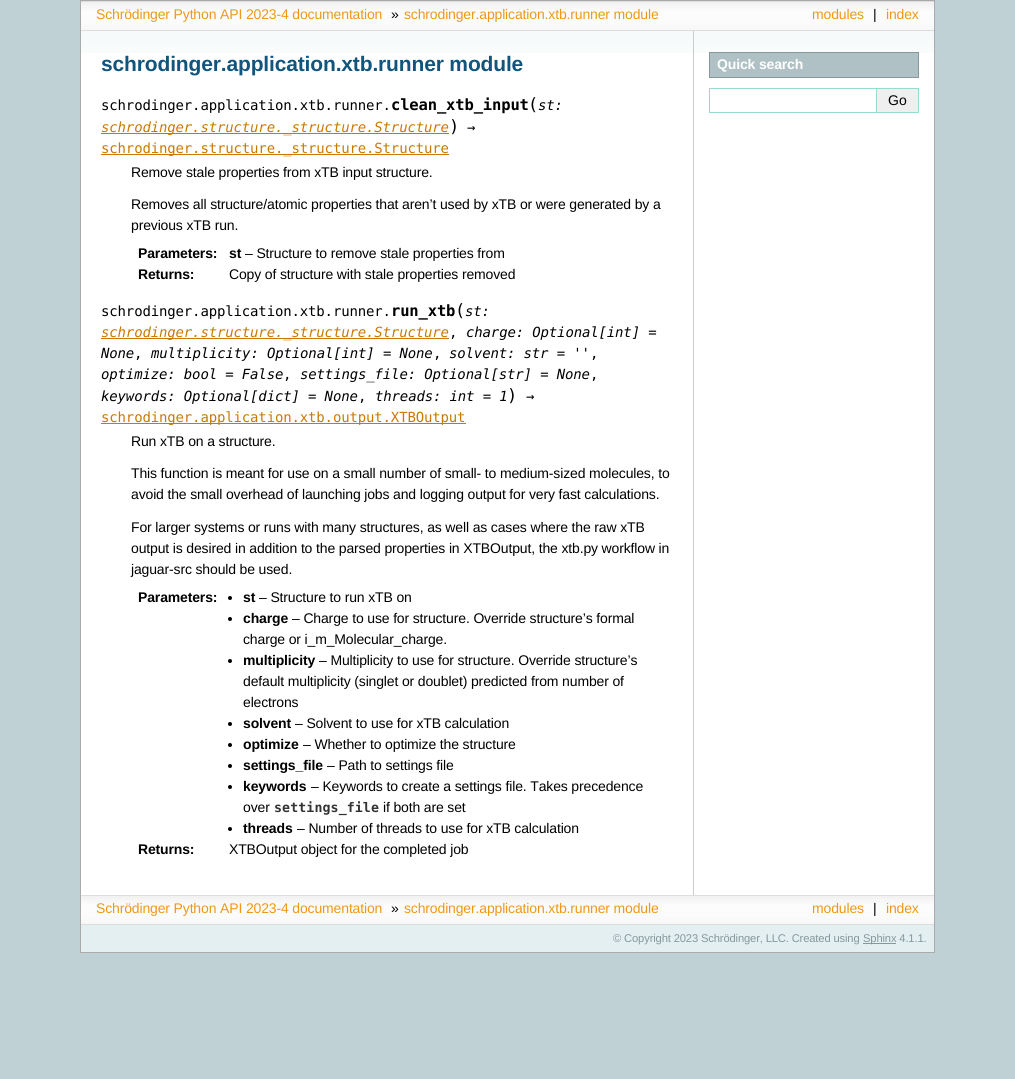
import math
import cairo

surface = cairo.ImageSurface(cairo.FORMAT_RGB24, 1015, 1079)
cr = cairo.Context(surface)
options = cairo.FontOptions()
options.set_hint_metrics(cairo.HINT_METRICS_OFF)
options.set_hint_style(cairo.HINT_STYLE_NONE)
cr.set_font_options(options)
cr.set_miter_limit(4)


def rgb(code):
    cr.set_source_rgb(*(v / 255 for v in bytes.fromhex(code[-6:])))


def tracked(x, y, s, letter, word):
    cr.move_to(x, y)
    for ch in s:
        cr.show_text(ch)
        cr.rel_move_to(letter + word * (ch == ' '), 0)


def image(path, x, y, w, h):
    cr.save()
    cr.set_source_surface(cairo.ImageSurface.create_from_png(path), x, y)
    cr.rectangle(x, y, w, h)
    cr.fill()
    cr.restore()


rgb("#bfd1d4")
cr.paint()
cr.rectangle(80.5, 0.5, 854, 952)
rgb("#aaaaaa")
cr.set_line_width(1)
cr.stroke()
image("img/1.png", 81, 2, 853, 28)
for x, y, w, h, color in [
    (81, 1, 853, 1, "#dddddd"),
    (81, 30, 853, 1, "#dddddd"),
    (81, 53, 853, 842, "#ffffff"),
]:
    rgb(color)
    cr.rectangle(x, y, w, h)
    cr.fill()
image("img/2.png", 81, 31, 853, 22)
for x, y, w, h, color in [
    (693, 31, 1, 864, "#cccccc"),
    (101, 133, 348, 1, "#ca7900"),
    (101, 154, 348, 1, "#ca7900"),
    (101, 338, 348, 1, "#ca7900"),
    (101, 423, 365, 1, "#ca7900"),
]:
    rgb(color)
    cr.rectangle(x, y, w, h)
    cr.fill()
rgb("#000000")
cr.arc(230, 598, 2, 0, 2 * math.pi)
cr.fill()
cr.arc(230, 619, 2, 0, 2 * math.pi)
cr.fill()
cr.arc(230, 661, 2, 0, 2 * math.pi)
cr.fill()
cr.arc(230, 724, 2, 0, 2 * math.pi)
cr.fill()
cr.arc(230, 745, 2, 0, 2 * math.pi)
cr.fill()
cr.arc(230, 766, 2, 0, 2 * math.pi)
cr.fill()
cr.arc(230, 787, 2, 0, 2 * math.pi)
cr.fill()
cr.arc(230, 829, 2, 0, 2 * math.pi)
cr.fill()
rgb("#afc1c4")
cr.rectangle(709.5, 52.5, 209, 25)
cr.fill_preserve()
rgb("#86989b")
cr.stroke()
cr.rectangle(709.5, 88.5, 167, 24)
rgb("#98dbcc")
cr.stroke()
for x, y, w, h, color in [
    (877, 89, 41, 23, "#efefef"),
    (877, 88, 42, 1, "#98dbcc"),
    (918, 88, 1, 25, "#98dbcc"),
    (877, 112, 42, 1, "#98dbcc"),
]:
    rgb(color)
    cr.rectangle(x, y, w, h)
    cr.fill()
image("img/1.png", 81, 896, 853, 28)
for x, y, w, h, color in [
    (81, 895, 853, 1, "#dddddd"),
    (81, 924, 853, 1, "#dddddd"),
    (81, 925, 853, 27, "#e3eff1"),
    (863, 943, 33, 1, "#86989b"),
]:
    rgb(color)
    cr.rectangle(x, y, w, h)
    cr.fill()
cr.select_font_face("Liberation Sans")
cr.set_font_size(14)
rgb("#ee9816")
tracked(96, 19, "Schrödinger Python API 2023-4 documentation", -0.15, 0)
rgb("#000000")
tracked(391, 19, "»", -0.15, 0)
rgb("#ee9816")
tracked(404, 19, "schrodinger.application.xtb.runner module", -0.15, 0)
tracked(812, 19, "modules", -0.15, 0)
rgb("#000000")
tracked(873, 19, "|", -0.15, 0)
rgb("#ee9816")
tracked(886, 19, "index", -0.15, 0)
cr.select_font_face("Liberation Sans", cairo.FONT_SLANT_NORMAL, cairo.FONT_WEIGHT_BOLD)
cr.set_font_size(21)
rgb("#11557c")
tracked(101, 71, "schrodinger.application.xtb.runner module", -0.15, 0)
cr.select_font_face("DejaVu Sans Mono")
cr.set_font_size(14)
rgb("#000000")
tracked(101, 110, "schrodinger.application.xtb.runner.", -0.15, 0)
cr.select_font_face("DejaVu Sans Mono", cairo.FONT_SLANT_NORMAL, cairo.FONT_WEIGHT_BOLD)
cr.set_font_size(15.5)
tracked(391, 110, "clean_xtb_input", -0.15, 0)
cr.select_font_face("DejaVu Sans Mono")
cr.set_font_size(17)
tracked(528, 110, "(", -0.15, 0)
cr.select_font_face("DejaVu Sans Mono", cairo.FONT_SLANT_ITALIC)
cr.set_font_size(14)
tracked(538, 110, "st:", -0.15, 0)
rgb("#ca7900")
tracked(101, 132, "schrodinger.structure._structure.Structure", -0.15, 0)
cr.select_font_face("DejaVu Sans Mono")
cr.set_font_size(17)
rgb("#000000")
tracked(449, 132, ")", -0.15, 0)
cr.set_font_size(14)
tracked(467, 132, "→", -0.15, 0)
rgb("#ca7900")
tracked(101, 153, "schrodinger.structure._structure.Structure", -0.15, 0)
cr.select_font_face("Liberation Sans")
rgb("#000000")
for x, y, s in [
    (131, 177, "Remove stale properties from xTB input structure."),
    (131, 209, "Removes all structure/atomic properties that aren’t used by xTB or were generated by a"),
    (131, 230, "previous xTB run."),
]:
    tracked(x, y, s, -0.15, 0)
cr.select_font_face("Liberation Sans", cairo.FONT_SLANT_NORMAL, cairo.FONT_WEIGHT_BOLD)
tracked(138, 258, "Parameters:", -0.15, 0)
tracked(229, 258, "st", -0.15, 0)
cr.select_font_face("Liberation Sans")
tracked(245, 258, "– Structure to remove stale properties from", -0.15, 0)
cr.select_font_face("Liberation Sans", cairo.FONT_SLANT_NORMAL, cairo.FONT_WEIGHT_BOLD)
tracked(138, 279, "Returns:", -0.15, 0)
cr.select_font_face("Liberation Sans")
tracked(229, 279, "Copy of structure with stale properties removed", -0.15, 0)
cr.select_font_face("DejaVu Sans Mono")
tracked(101, 316, "schrodinger.application.xtb.runner.", -0.15, 0)
cr.select_font_face("DejaVu Sans Mono", cairo.FONT_SLANT_NORMAL, cairo.FONT_WEIGHT_BOLD)
cr.set_font_size(15.5)
tracked(391, 316, "run_xtb", -0.15, 0)
cr.select_font_face("DejaVu Sans Mono")
cr.set_font_size(17)
tracked(455, 316, "(", -0.15, 0)
cr.select_font_face("DejaVu Sans Mono", cairo.FONT_SLANT_ITALIC)
cr.set_font_size(14)
tracked(465, 316, "st:", -0.15, 0)
rgb("#ca7900")
tracked(101, 337, "schrodinger.structure._structure.Structure", -0.15, 0)
cr.select_font_face("DejaVu Sans Mono")
rgb("#000000")
tracked(449, 337, ",", -0.15, 0)
cr.select_font_face("DejaVu Sans Mono", cairo.FONT_SLANT_ITALIC)
tracked(466, 337, "charge: Optional[int] =", -0.15, 0)
tracked(101, 358, "None", -0.15, 0)
cr.select_font_face("DejaVu Sans Mono")
tracked(134, 358, ",", -0.15, 0)
cr.select_font_face("DejaVu Sans Mono", cairo.FONT_SLANT_ITALIC)
tracked(151, 358, "multiplicity: Optional[int] = None", -0.15, 0)
cr.select_font_face("DejaVu Sans Mono")
tracked(433, 358, ",", -0.15, 0)
cr.select_font_face("DejaVu Sans Mono", cairo.FONT_SLANT_ITALIC)
tracked(449, 358, "solvent: str = ''", -0.15, 0)
cr.select_font_face("DejaVu Sans Mono")
tracked(590, 358, ",", -0.15, 0)
cr.select_font_face("DejaVu Sans Mono", cairo.FONT_SLANT_ITALIC)
tracked(101, 379, "optimize: bool = False", -0.15, 0)
cr.select_font_face("DejaVu Sans Mono")
tracked(283, 379, ",", -0.15, 0)
cr.select_font_face("DejaVu Sans Mono", cairo.FONT_SLANT_ITALIC)
tracked(300, 379, "settings_file: Optional[str] = None", -0.15, 0)
cr.select_font_face("DejaVu Sans Mono")
tracked(590, 379, ",", -0.15, 0)
cr.select_font_face("DejaVu Sans Mono", cairo.FONT_SLANT_ITALIC)
tracked(101, 401, "keywords: Optional[dict] = None", -0.15, 0)
tracked(375, 401, "threads: int = 1", -0.15, 0)
cr.select_font_face("DejaVu Sans Mono")
cr.set_font_size(17)
tracked(507, 401, ")", -0.15, 0)
cr.set_font_size(14)
tracked(526, 401, "→", -0.15, 0)
tracked(358, 401, ",", -0.15, 0)
rgb("#ca7900")
tracked(101, 422, "schrodinger.application.xtb.output.XTBOutput", -0.15, 0)
cr.select_font_face("Liberation Sans")
rgb("#000000")
for x, y, s in [
    (131, 446, "Run xTB on a structure."),
    (131, 478, "This function is meant for use on a small number of small- to medium-sized molecules, to"),
    (131, 499, "avoid the small overhead of launching jobs and logging output for very fast calculations."),
    (131, 532, "For larger systems or runs with many structures, as well as cases where the raw xTB"),
    (131, 553, "output is desired in addition to the parsed properties in XTBOutput, the xtb.py workflow in"),
    (131, 574, "jaguar-src should be used."),
]:
    tracked(x, y, s, -0.15, 0)
cr.select_font_face("Liberation Sans", cairo.FONT_SLANT_NORMAL, cairo.FONT_WEIGHT_BOLD)
tracked(138, 602, "Parameters:", -0.15, 0)
tracked(243, 602, "st", -0.15, 0)
cr.select_font_face("Liberation Sans")
tracked(259, 602, "– Structure to run xTB on", -0.15, 0)
cr.select_font_face("Liberation Sans", cairo.FONT_SLANT_NORMAL, cairo.FONT_WEIGHT_BOLD)
tracked(243, 623, "charge", -0.15, 0)
cr.select_font_face("Liberation Sans")
tracked(292, 623, "– Charge to use for structure. Override structure’s formal", -0.15, 0)
tracked(243, 644, "charge or i_m_Molecular_charge.", -0.15, 0)
cr.select_font_face("Liberation Sans", cairo.FONT_SLANT_NORMAL, cairo.FONT_WEIGHT_BOLD)
tracked(243, 665, "multiplicity", -0.15, 0)
cr.select_font_face("Liberation Sans")
for x, y, s in [
    (319, 665, "– Multiplicity to use for structure. Override structure’s"),
    (243, 686, "default multiplicity (singlet or doublet) predicted from number of"),
    (243, 707, "electrons"),
]:
    tracked(x, y, s, -0.15, 0)
cr.select_font_face("Liberation Sans", cairo.FONT_SLANT_NORMAL, cairo.FONT_WEIGHT_BOLD)
tracked(243, 728, "solvent", -0.15, 0)
cr.select_font_face("Liberation Sans")
tracked(295, 728, "– Solvent to use for xTB calculation", -0.15, 0)
cr.select_font_face("Liberation Sans", cairo.FONT_SLANT_NORMAL, cairo.FONT_WEIGHT_BOLD)
tracked(243, 749, "optimize", -0.15, 0)
cr.select_font_face("Liberation Sans")
tracked(303, 749, "– Whether to optimize the structure", -0.15, 0)
cr.select_font_face("Liberation Sans", cairo.FONT_SLANT_NORMAL, cairo.FONT_WEIGHT_BOLD)
tracked(243, 770, "settings_file", -0.15, 0)
cr.select_font_face("Liberation Sans")
tracked(327, 770, "– Path to settings file", -0.15, 0)
cr.select_font_face("Liberation Sans", cairo.FONT_SLANT_NORMAL, cairo.FONT_WEIGHT_BOLD)
tracked(243, 791, "keywords", -0.15, 0)
cr.select_font_face("Liberation Sans")
tracked(311, 791, "– Keywords to create a settings file. Takes precedence", -0.15, 0)
tracked(243, 812, "over", -0.15, 0)
cr.select_font_face("DejaVu Sans Mono", cairo.FONT_SLANT_NORMAL, cairo.FONT_WEIGHT_BOLD)
cr.set_font_size(13.25)
rgb("#333333")
tracked(274, 812, "settings_file", 0.1, 0)
cr.select_font_face("Liberation Sans")
cr.set_font_size(14)
rgb("#000000")
tracked(383, 812, "if both are set", -0.15, 0)
cr.select_font_face("Liberation Sans", cairo.FONT_SLANT_NORMAL, cairo.FONT_WEIGHT_BOLD)
tracked(243, 833, "threads", -0.15, 0)
cr.select_font_face("Liberation Sans")
tracked(297, 833, "– Number of threads to use for xTB calculation", -0.15, 0)
cr.select_font_face("Liberation Sans", cairo.FONT_SLANT_NORMAL, cairo.FONT_WEIGHT_BOLD)
tracked(138, 854, "Returns:", -0.15, 0)
cr.select_font_face("Liberation Sans")
tracked(229, 854, "XTBOutput object for the completed job", -0.15, 0)
cr.select_font_face("Liberation Sans", cairo.FONT_SLANT_NORMAL, cairo.FONT_WEIGHT_BOLD)
rgb("#ffffff")
tracked(717, 69, "Quick search", -0.15, 0)
cr.select_font_face("Liberation Sans")
rgb("#000000")
cr.move_to(888, 105)
cr.show_text("Go")
rgb("#ee9816")
tracked(96, 913, "Schrödinger Python API 2023-4 documentation", -0.15, 0)
rgb("#000000")
tracked(391, 913, "»", -0.15, 0)
rgb("#ee9816")
tracked(404, 913, "schrodinger.application.xtb.runner module", -0.15, 0)
tracked(812, 913, "modules", -0.15, 0)
rgb("#000000")
tracked(873, 913, "|", -0.15, 0)
rgb("#ee9816")
tracked(886, 913, "index", -0.15, 0)
cr.set_font_size(11.2)
rgb("#86989b")
tracked(613, 942, "© Copyright 2023 Schrödinger, LLC. Created using", -0.15, 0)
tracked(863, 942, "Sphinx 4.1.1.", -0.15, 0)
surface.write_to_png("page.png")
